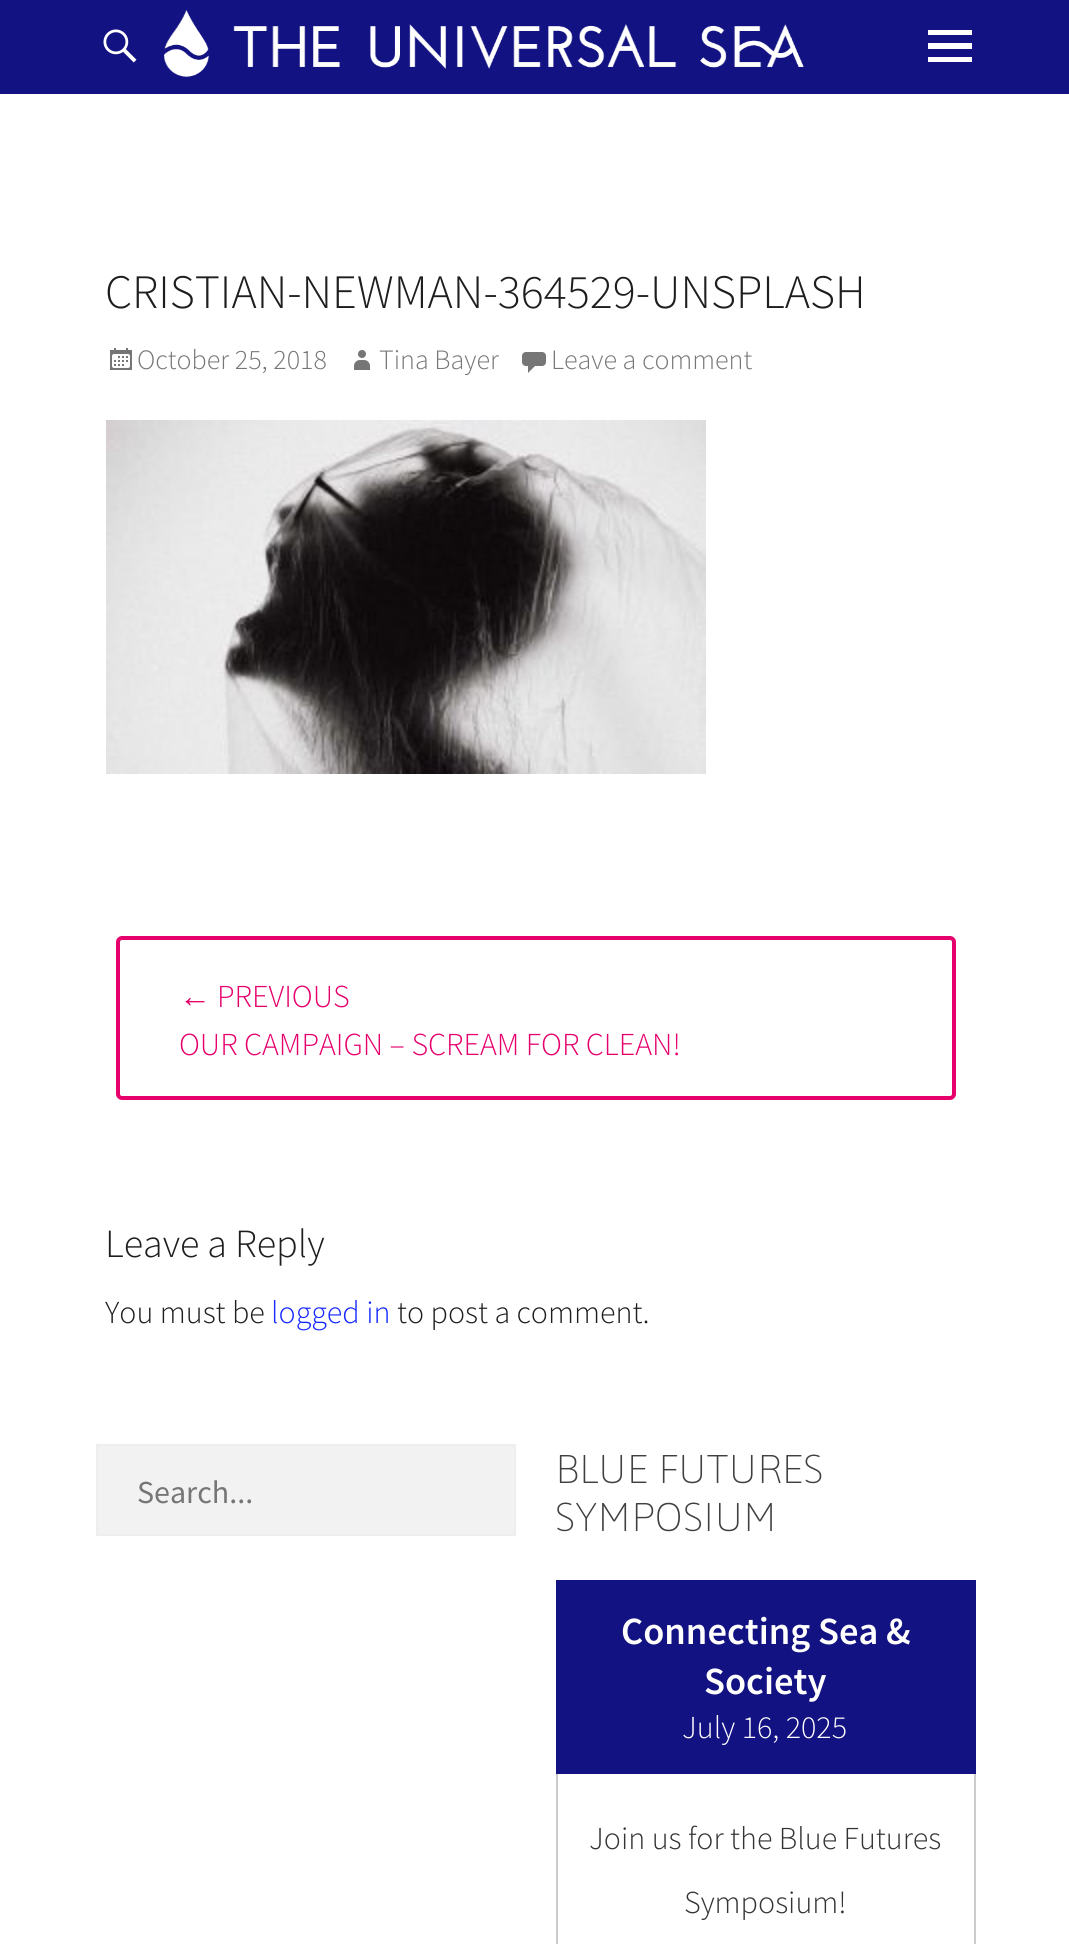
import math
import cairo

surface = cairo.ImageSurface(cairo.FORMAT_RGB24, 1069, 1944)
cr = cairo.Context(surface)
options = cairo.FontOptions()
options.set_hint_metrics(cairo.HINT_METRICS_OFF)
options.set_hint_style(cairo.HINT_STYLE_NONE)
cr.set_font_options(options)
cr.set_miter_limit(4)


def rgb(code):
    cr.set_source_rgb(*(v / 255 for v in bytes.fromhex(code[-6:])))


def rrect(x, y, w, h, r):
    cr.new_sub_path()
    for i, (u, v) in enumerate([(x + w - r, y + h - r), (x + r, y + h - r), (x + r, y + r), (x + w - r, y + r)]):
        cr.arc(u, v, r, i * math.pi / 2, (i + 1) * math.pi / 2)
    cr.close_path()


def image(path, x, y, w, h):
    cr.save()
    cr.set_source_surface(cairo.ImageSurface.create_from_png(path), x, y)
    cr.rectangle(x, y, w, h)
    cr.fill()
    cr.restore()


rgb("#ffffff")
cr.paint()
rgb("#121282")
cr.rectangle(0, 0, 1069, 94)
cr.fill()
image("img/1.png", 164, 10, 640, 67)
image("img/2.png", 103, 29, 34, 34)
rgb("#ffffff")
cr.new_path()
cr.move_to(928, 62)
cr.line_to(928, 57)
cr.line_to(972, 57)
cr.line_to(972, 62)
cr.close_path()
cr.move_to(928, 30)
cr.line_to(972, 30)
cr.line_to(972, 35)
cr.line_to(928, 35)
cr.close_path()
cr.move_to(928, 49)
cr.line_to(928, 43)
cr.line_to(972, 43)
cr.line_to(972, 49)
cr.close_path()
cr.fill()
image("img/3.png", 110, 348, 22, 22)
image("img/4.png", 354, 350, 16, 20)
image("img/5.png", 522, 352, 24, 21)
image("img/6.png", 106, 420, 600, 354)
rrect(118, 938, 836, 160, 4)
rgb("#e5006c")
cr.set_line_width(4)
cr.stroke()
rgb("#f2f2f2")
cr.rectangle(97, 1445, 418, 90)
cr.fill_preserve()
rgb("#eeeeee")
cr.set_line_width(2)
cr.stroke()
for x, y, w, h, color in [
    (556, 1580, 420, 194, "#121282"),
    (974, 1774, 2, 170, "#cccccc"),
    (556, 1774, 2, 170, "#cccccc"),
]:
    rgb(color)
    cr.rectangle(x, y, w, h)
    cr.fill()
cr.select_font_face("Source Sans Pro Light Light")
cr.set_font_size(48)
rgb("#1e1e1e")
cr.move_to(105, 308)
cr.show_text("CRISTIAN-NEWMAN-364529-UNSPLASH")
cr.set_font_size(28)
rgb("#767676")
for x, y, s in [
    (137, 369, "October 25, 2018"),
    (379, 369, "Tina Bayer"),
    (551, 369, "Leave a comment"),
]:
    cr.move_to(x, y)
    cr.show_text(s)
cr.select_font_face("Liberation Sans")
cr.set_font_size(32)
rgb("#e5006c")
cr.move_to(179, 1007)
cr.show_text("←")
cr.select_font_face("Source Sans Pro Light Light")
cr.move_to(217, 1007)
cr.show_text("PREVIOUS")
cr.move_to(179, 1055)
cr.show_text("OUR CAMPAIGN – SCREAM FOR CLEAN!")
cr.set_font_size(40)
rgb("#1e1e1e")
cr.move_to(105, 1257)
cr.show_text("Leave a Reply")
cr.set_font_size(32)
cr.move_to(105, 1323)
cr.show_text("You must be")
rgb("#1428ff")
cr.move_to(271, 1323)
cr.show_text("logged in")
rgb("#1e1e1e")
cr.move_to(397, 1323)
cr.show_text("to post a comment.")
cr.select_font_face("Source Sans Pro")
rgb("#767676")
cr.move_to(137, 1503)
cr.show_text("Search...")
cr.select_font_face("Asap Thin")
cr.set_font_size(40)
rgb("#404040")
cr.move_to(555, 1483)
cr.show_text("BLUE FUTURES")
cr.move_to(555, 1531)
cr.show_text("SYMPOSIUM")
cr.select_font_face("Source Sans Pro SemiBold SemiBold")
cr.set_font_size(38.5)
rgb("#ffffff")
cr.move_to(621, 1644)
cr.show_text("Connecting Sea &")
cr.move_to(704, 1694)
cr.show_text("Society")
cr.select_font_face("Source Sans Pro Light Light")
cr.set_font_size(32)
cr.move_to(682, 1738)
cr.show_text("July 16, 2025")
rgb("#333333")
cr.move_to(589, 1849)
cr.show_text("Join us for the Blue Futures")
cr.move_to(684, 1913)
cr.show_text("Symposium!")
surface.write_to_png("page.png")
